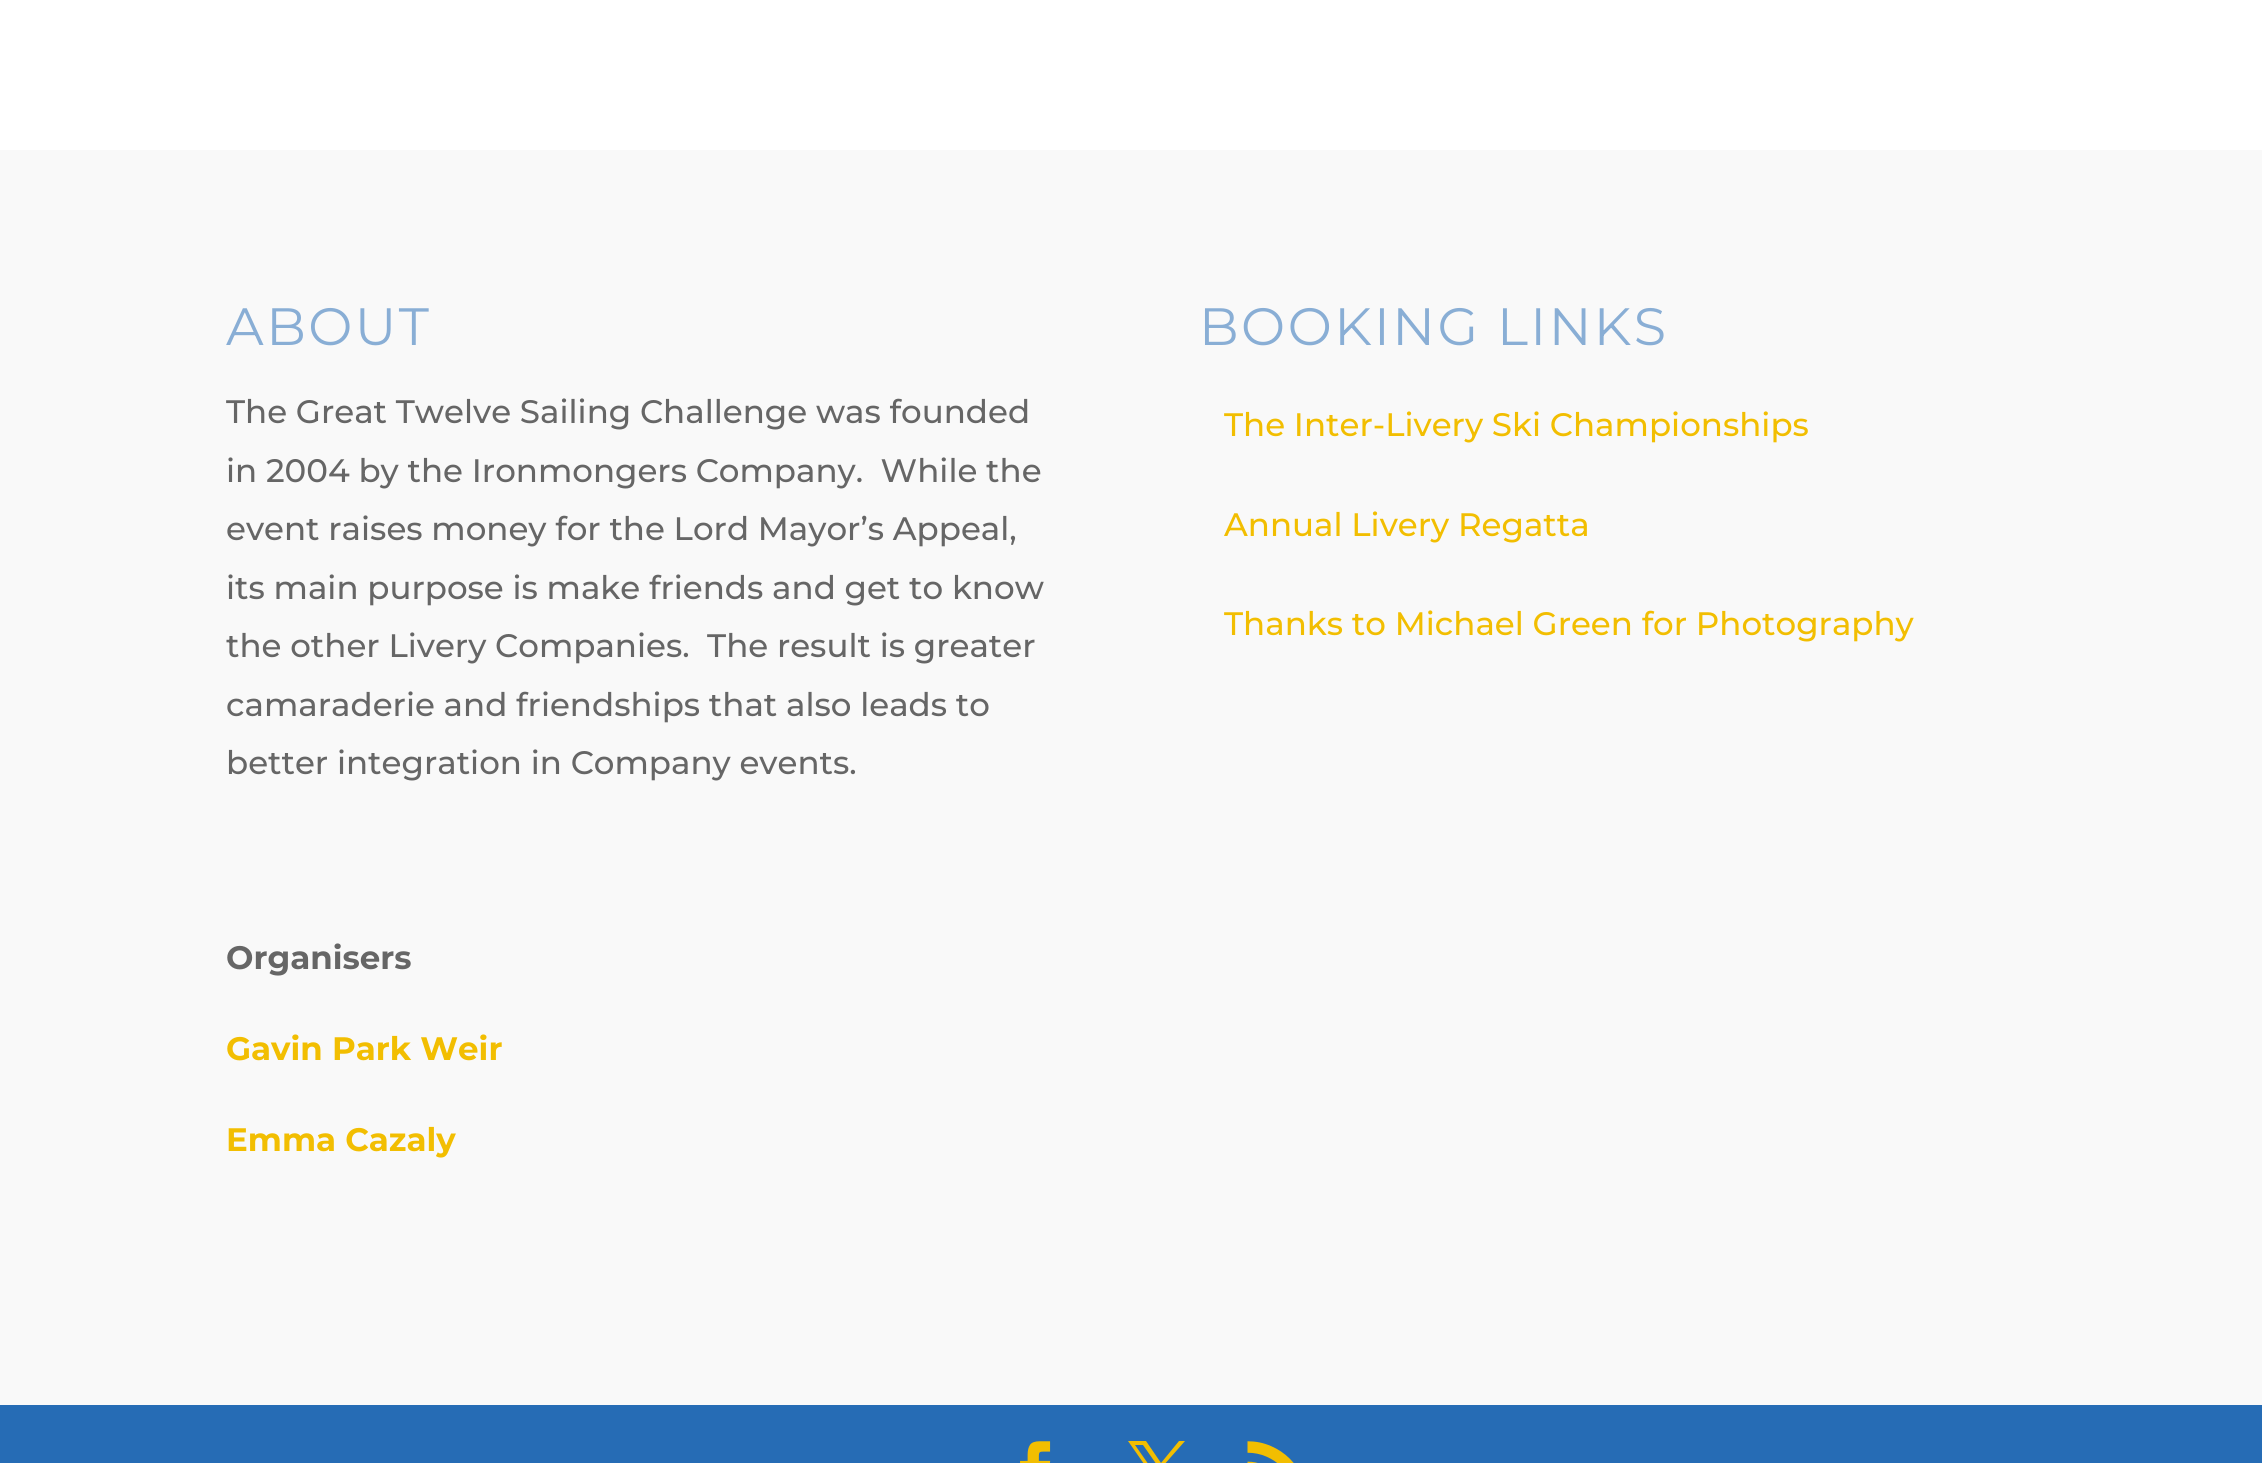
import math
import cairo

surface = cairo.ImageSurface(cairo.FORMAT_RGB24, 2262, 1463)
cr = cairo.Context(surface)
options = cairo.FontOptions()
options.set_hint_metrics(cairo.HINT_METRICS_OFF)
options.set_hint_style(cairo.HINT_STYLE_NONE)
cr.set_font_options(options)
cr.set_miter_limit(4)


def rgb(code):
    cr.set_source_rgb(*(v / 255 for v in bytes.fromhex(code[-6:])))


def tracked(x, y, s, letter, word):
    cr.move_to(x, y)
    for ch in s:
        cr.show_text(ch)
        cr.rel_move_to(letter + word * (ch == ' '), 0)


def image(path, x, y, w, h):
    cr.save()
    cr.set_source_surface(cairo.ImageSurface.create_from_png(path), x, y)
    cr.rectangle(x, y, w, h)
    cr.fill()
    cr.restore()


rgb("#ffffff")
cr.paint()
rgb("#f9f9f9")
cr.rectangle(0, 150, 2262, 1255)
cr.fill()
rgb("#266cb5")
cr.rectangle(0, 1405, 2262, 58)
cr.fill()
image("img/1.png", 1020, 1441, 31, 22)
rgb("#f2be01")
cr.new_path()
cr.move_to(1128, 1441)
cr.line_to(1151, 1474)
cr.line_to(1128, 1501)
cr.line_to(1133, 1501)
cr.line_to(1153, 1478)
cr.line_to(1170, 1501)
cr.line_to(1187, 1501)
cr.line_to(1163, 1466)
cr.line_to(1185, 1441)
cr.line_to(1179, 1441)
cr.line_to(1161, 1463)
cr.line_to(1146, 1441)
cr.close_path()
cr.move_to(1135, 1445)
cr.line_to(1143, 1445)
cr.line_to(1180, 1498)
cr.line_to(1172, 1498)
cr.close_path()
cr.fill()
image("img/2.png", 1247, 1441, 47, 22)
cr.select_font_face("Montserrat")
cr.set_font_size(52.5)
rgb("#89aed5")
tracked(226, 345, "ABOUT", 2.5, 0)
cr.select_font_face("Montserrat Medium")
cr.set_font_size(32.5)
rgb("#666666")
for x, y, s in [
    (226, 423, "The Great Twelve Sailing Challenge was founded"),
    (226, 482, "in 2004 by the Ironmongers Company.  While the"),
    (226, 540, "event raises money for the Lord Mayor’s Appeal,"),
    (226, 599, "its main purpose is make friends and get to know"),
    (226, 657, "the other Livery Companies.  The result is greater"),
    (226, 716, "camaraderie and friendships that also leads to"),
    (226, 774, "better integration in Company events."),
]:
    cr.move_to(x, y)
    cr.show_text(s)
cr.select_font_face("Montserrat")
cr.set_font_size(52.5)
rgb("#89aed5")
tracked(1199, 345, "BOOKING LINKS", 2.5, 0)
cr.select_font_face("Montserrat Medium")
cr.set_font_size(32.5)
rgb("#f2be01")
for x, y, s in [
    (1224, 436, "The Inter-Livery Ski Championships"),
    (1224, 536, "Annual Livery Regatta"),
    (1224, 635, "Thanks to Michael Green for Photography"),
]:
    cr.move_to(x, y)
    cr.show_text(s)
cr.select_font_face("Montserrat", cairo.FONT_SLANT_NORMAL, cairo.FONT_WEIGHT_BOLD)
rgb("#666666")
cr.move_to(226, 969)
cr.show_text("Organisers")
rgb("#f2be01")
cr.move_to(226, 1060)
cr.show_text("Gavin Park Weir")
cr.move_to(226, 1151)
cr.show_text("Emma Cazaly")
surface.write_to_png("page.png")
